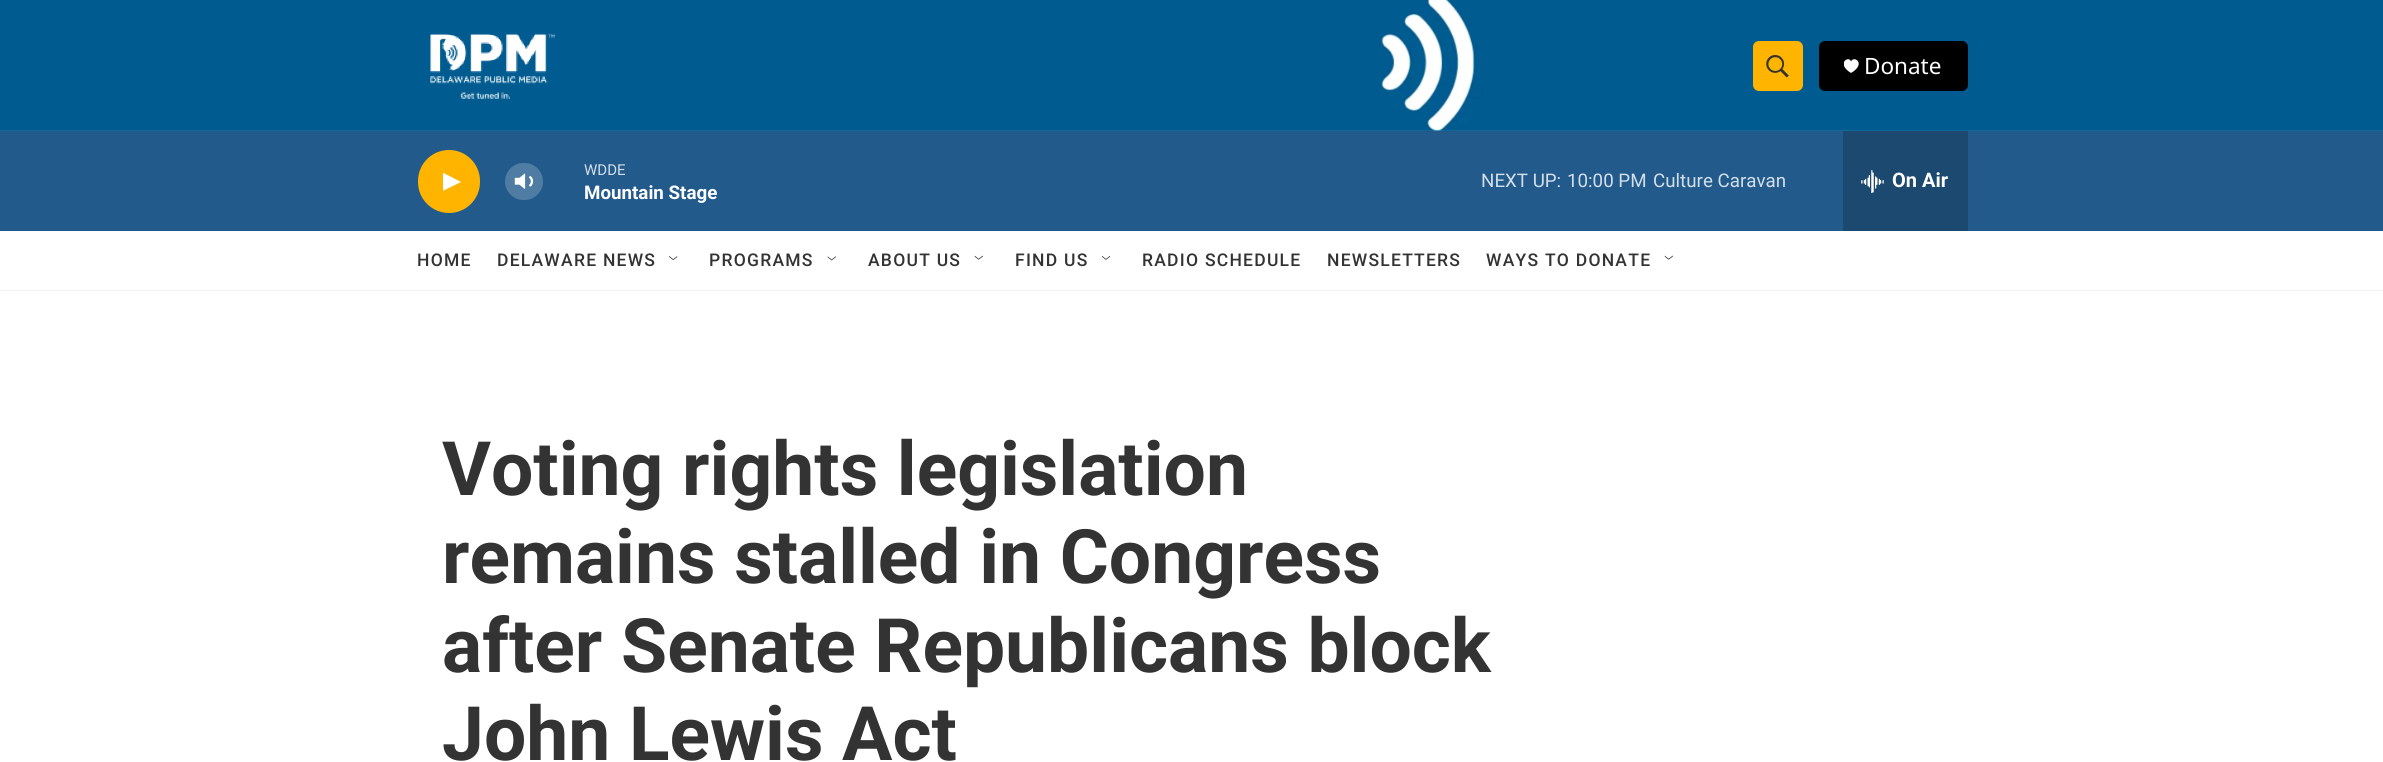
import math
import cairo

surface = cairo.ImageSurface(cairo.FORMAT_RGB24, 2383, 762)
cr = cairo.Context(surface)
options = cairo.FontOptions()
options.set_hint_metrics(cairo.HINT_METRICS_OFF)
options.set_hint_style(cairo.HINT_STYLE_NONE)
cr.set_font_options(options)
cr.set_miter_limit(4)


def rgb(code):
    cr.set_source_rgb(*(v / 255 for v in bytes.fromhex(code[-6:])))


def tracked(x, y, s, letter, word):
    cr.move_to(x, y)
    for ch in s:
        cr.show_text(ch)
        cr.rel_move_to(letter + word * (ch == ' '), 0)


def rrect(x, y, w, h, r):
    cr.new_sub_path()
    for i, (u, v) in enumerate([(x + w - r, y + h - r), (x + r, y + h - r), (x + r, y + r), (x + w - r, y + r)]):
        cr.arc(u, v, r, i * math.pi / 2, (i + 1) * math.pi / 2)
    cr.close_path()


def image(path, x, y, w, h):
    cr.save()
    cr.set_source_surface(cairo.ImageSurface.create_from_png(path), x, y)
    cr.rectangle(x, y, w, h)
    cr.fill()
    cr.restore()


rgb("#ffffff")
cr.paint()
rgb("#f5f5f5")
cr.rectangle(0, 290, 2383, 1)
cr.fill()
image("img/1.png", 0, 0, 2383, 131)
image("img/2.png", 430, 33, 125, 66)
rgb("#ffb500")
rrect(1753, 41, 50, 50, 6)
cr.fill()
image("img/3.png", 1766, 55, 23, 23)
rgb("#000000")
rrect(1819, 41, 149, 50, 6)
cr.fill()
cr.save()
cr.rectangle(1844, 59, 15, 15)
cr.clip()
rgb("#ffffff")
cr.new_path()
cr.move_to(1851, 61.5)
cr.curve_to(1849, 55, 1835.5, 63.5, 1851, 73)
cr.curve_to(1867, 63.5, 1853.5, 55, 1851, 61.5)
cr.close_path()
cr.fill()
cr.restore()
rgb("#225b8b")
cr.rectangle(0, 131, 2383, 100)
cr.fill()
rgb("#ffb500")
rrect(418, 150, 62, 63, 31)
cr.fill()
cr.save()
cr.rectangle(443, 170, 18, 24)
cr.clip()
rgb("#ffffff")
cr.new_path()
cr.move_to(442.5, 172.5)
cr.line_to(461, 182)
cr.line_to(442.5, 191)
cr.close_path()
cr.fill()
cr.restore()
image("img/4.png", 514, 173, 20, 17)
cr.set_source_rgba(1, 1, 1, 0.2)
rrect(505, 163, 38, 37, 18.5)
cr.fill()
rgb("#1b496f")
cr.rectangle(1843, 131, 125, 100)
cr.fill()
image("img/5.png", 1861, 170, 23, 23)
image("img/6.png", 669, 256, 9, 4)
image("img/7.png", 827, 256, 9, 5)
image("img/8.png", 974, 255, 9, 5)
image("img/9.png", 1101, 255, 10, 5)
image("img/10.png", 1664, 255, 9, 5)
cr.select_font_face("Noto Sans")
cr.set_font_size(22.5)
rgb("#ffffff")
cr.move_to(1864, 74)
cr.show_text("Donate")
cr.select_font_face("Roboto")
cr.set_font_size(15)
rgb("#d3dee8")
cr.move_to(584, 175)
cr.show_text("WDDE")
cr.select_font_face("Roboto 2", cairo.FONT_SLANT_NORMAL, cairo.FONT_WEIGHT_BOLD)
cr.set_font_size(18.75)
rgb("#ffffff")
cr.move_to(584, 199)
cr.show_text("Mountain Stage")
cr.select_font_face("Roboto")
rgb("#d3dee8")
for x, y, s in [
    (1481, 187, "NEXT UP:"),
    (1567, 187, "10:00 PM"),
    (1653, 187, "Culture Caravan"),
]:
    cr.move_to(x, y)
    cr.show_text(s)
cr.select_font_face("Roboto 2", cairo.FONT_SLANT_NORMAL, cairo.FONT_WEIGHT_BOLD)
cr.set_font_size(20)
rgb("#ffffff")
cr.move_to(1892, 187)
cr.show_text("On Air")
cr.select_font_face("Roboto Medium")
cr.set_font_size(17.5)
rgb("#333333")
for x, y, s in [
    (417, 266, "HOME"),
    (497, 266, "DELAWARE NEWS"),
    (709, 266, "PROGRAMS"),
    (868, 266, "ABOUT US"),
    (1015, 266, "FIND US"),
    (1142, 266, "RADIO SCHEDULE"),
    (1327, 266, "NEWSLETTERS"),
    (1486, 266, "WAYS TO DONATE"),
]:
    tracked(x, y, s, 1.25, 0)
cr.select_font_face("Roboto", cairo.FONT_SLANT_NORMAL, cairo.FONT_WEIGHT_BOLD)
cr.set_font_size(75)
for x, y, s in [
    (442, 495, "Voting rights legislation"),
    (442, 583, "remains stalled in Congress"),
    (442, 672, "after Senate Republicans block"),
    (442, 760, "John Lewis Act"),
]:
    cr.move_to(x, y)
    cr.show_text(s)
surface.write_to_png("page.png")
